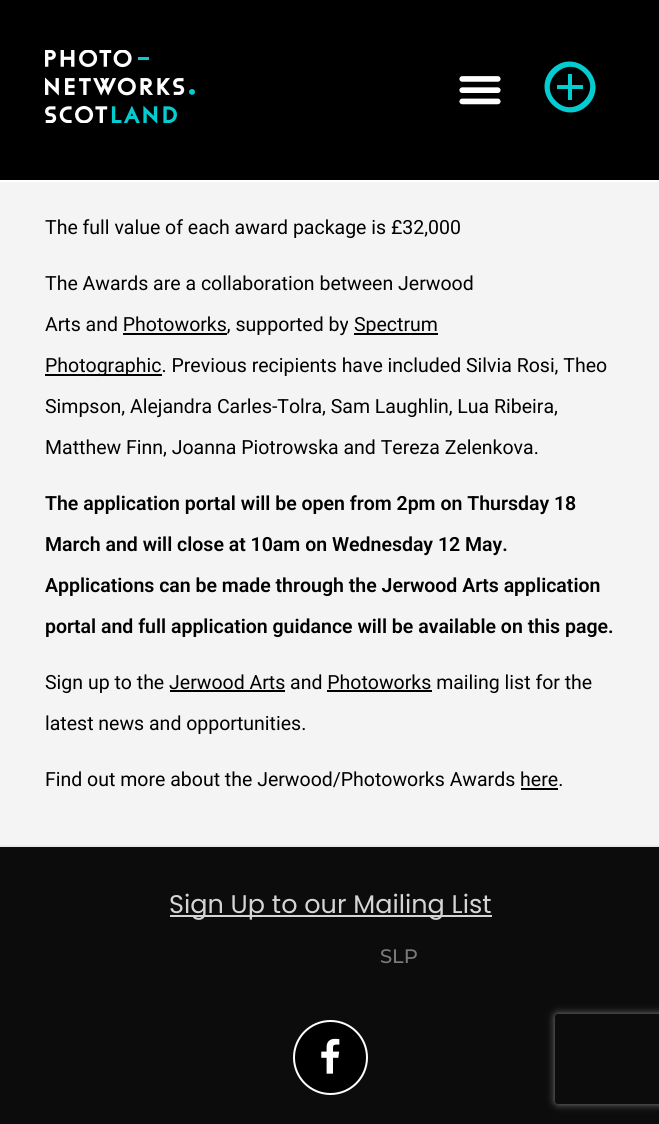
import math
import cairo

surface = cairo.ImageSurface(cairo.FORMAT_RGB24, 659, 1124)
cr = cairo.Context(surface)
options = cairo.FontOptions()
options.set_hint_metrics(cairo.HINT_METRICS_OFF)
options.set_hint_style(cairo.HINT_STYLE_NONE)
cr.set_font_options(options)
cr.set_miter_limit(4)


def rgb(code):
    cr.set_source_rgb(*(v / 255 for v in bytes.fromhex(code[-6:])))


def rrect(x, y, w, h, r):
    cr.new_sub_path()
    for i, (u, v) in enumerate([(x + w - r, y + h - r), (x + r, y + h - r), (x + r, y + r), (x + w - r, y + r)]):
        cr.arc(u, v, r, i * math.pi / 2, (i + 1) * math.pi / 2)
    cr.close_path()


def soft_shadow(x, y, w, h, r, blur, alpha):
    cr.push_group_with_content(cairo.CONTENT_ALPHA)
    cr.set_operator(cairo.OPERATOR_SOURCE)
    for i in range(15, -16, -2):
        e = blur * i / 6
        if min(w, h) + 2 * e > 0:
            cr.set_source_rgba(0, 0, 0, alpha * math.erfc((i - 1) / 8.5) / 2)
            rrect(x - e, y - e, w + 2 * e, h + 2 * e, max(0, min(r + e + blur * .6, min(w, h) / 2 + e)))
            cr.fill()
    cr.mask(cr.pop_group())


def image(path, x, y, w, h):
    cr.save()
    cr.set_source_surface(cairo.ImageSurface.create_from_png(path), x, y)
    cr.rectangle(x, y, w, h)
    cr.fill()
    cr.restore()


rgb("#f4f4f4")
cr.paint()
for x, y, w, h, color in [
    (0, 845, 659, 2, "#eaeaea"),
    (0, 0, 659, 180, "#000000"),
    (0, 180, 659, 2, "#ffffff"),
]:
    rgb(color)
    cr.rectangle(x, y, w, h)
    cr.fill()
image("img/1.png", 45, 50, 150, 73)
image("img/2.png", 459, 76, 42, 29)
rgb("#04cdd1")
cr.new_path()
cr.move_to(556, 101)
cr.curve_to(574, 120, 603, 91, 584, 73)
cr.curve_to(566, 54, 537, 83, 556, 101)
cr.close_path()
cr.move_to(552, 69)
cr.curve_to(576, 46, 611, 81, 588, 105)
cr.curve_to(564, 128, 529, 93, 552, 69)
cr.close_path()
cr.move_to(572, 74)
cr.line_to(572, 85)
cr.line_to(583, 85)
cr.line_to(583, 89)
cr.line_to(572, 89)
cr.line_to(572, 100)
cr.line_to(568, 100)
cr.line_to(568, 89)
cr.line_to(557, 89)
cr.line_to(557, 85)
cr.line_to(568, 85)
cr.line_to(568, 74)
cr.close_path()
cr.fill()
for x, y, w, h, color in [
    (354, 333, 84, 2, "#000000"),
    (123, 333, 104, 2, "#000000"),
    (45, 374, 117, 2, "#000000"),
    (170, 690, 115, 2, "#000000"),
    (327, 690, 105, 2, "#000000"),
    (521, 788, 37, 2, "#000000"),
    (0, 847, 659, 277, "#0c0c0c"),
    (170, 915, 322, 2, "#d5d5d5"),
]:
    rgb(color)
    cr.rectangle(x, y, w, h)
    cr.fill()
rgb("#000000")
cr.arc(330.5, 1057.5, 36.5, 0, 2 * math.pi)
cr.fill_preserve()
rgb("#ffffff")
cr.stroke()
image("img/3.png", 321, 1038, 19, 36)
cr.save()
cr.set_fill_rule(cairo.FILL_RULE_EVEN_ODD)
cr.new_path()
cr.move_to(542, 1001)
cr.line_to(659, 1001)
cr.line_to(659, 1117)
cr.line_to(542, 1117)
cr.close_path()
cr.move_to(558, 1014)
cr.line_to(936, 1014)
cr.curve_to(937.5, 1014, 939, 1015.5, 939, 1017)
cr.line_to(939, 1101)
cr.curve_to(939, 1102.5, 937.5, 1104, 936, 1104)
cr.line_to(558, 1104)
cr.curve_to(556.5, 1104, 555, 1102.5, 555, 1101)
cr.line_to(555, 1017)
cr.curve_to(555, 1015.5, 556.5, 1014, 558, 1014)
cr.close_path()
cr.clip()
rgb("#808080")
soft_shadow(555, 1014, 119, 90, 3, 4, 1)
cr.restore()
cr.select_font_face("Roboto")
cr.set_font_size(19.5)
rgb("#000000")
for x, y, s in [
    (45, 234, "The full value of each award package is £32,000"),
    (45, 290, "The Awards are a collaboration between Jerwood"),
    (45, 331, "Arts and Photoworks, supported by"),
    (354, 331, "Spectrum"),
    (45, 372, "Photographic. Previous recipients have included Silvia Rosi, Theo"),
    (45, 413, "Simpson, Alejandra Carles-Tolra, Sam Laughlin, Lua Ribeira,"),
    (45, 454, "Matthew Finn, Joanna Piotrowska and Tereza Zelenkova."),
]:
    cr.move_to(x, y)
    cr.show_text(s)
cr.select_font_face("Roboto SemiBold")
for x, y, s in [
    (45, 510, "The application portal will be open from 2pm on Thursday 18"),
    (45, 551, "March and will close at 10am on Wednesday 12 May."),
    (45, 592, "Applications can be made through the Jerwood Arts application"),
    (45, 633, "portal and full application guidance will be available on this page."),
]:
    cr.move_to(x, y)
    cr.show_text(s)
cr.select_font_face("Roboto")
for x, y, s in [
    (45, 689, "Sign up to the Jerwood Arts and Photoworks mailing list for the"),
    (45, 730, "latest news and opportunities."),
    (45, 786, "Find out more about the Jerwood/Photoworks Awards here."),
]:
    cr.move_to(x, y)
    cr.show_text(s)
cr.select_font_face("Poppins")
cr.set_font_size(25.5)
rgb("#d5d5d5")
cr.move_to(169, 913)
cr.show_text("Sign Up to our Mailing List")
cr.select_font_face("Montserrat Medium")
cr.set_font_size(19.5)
rgb("#7b7b7b")
cr.move_to(380, 963)
cr.show_text("SLP")
surface.write_to_png("page.png")
